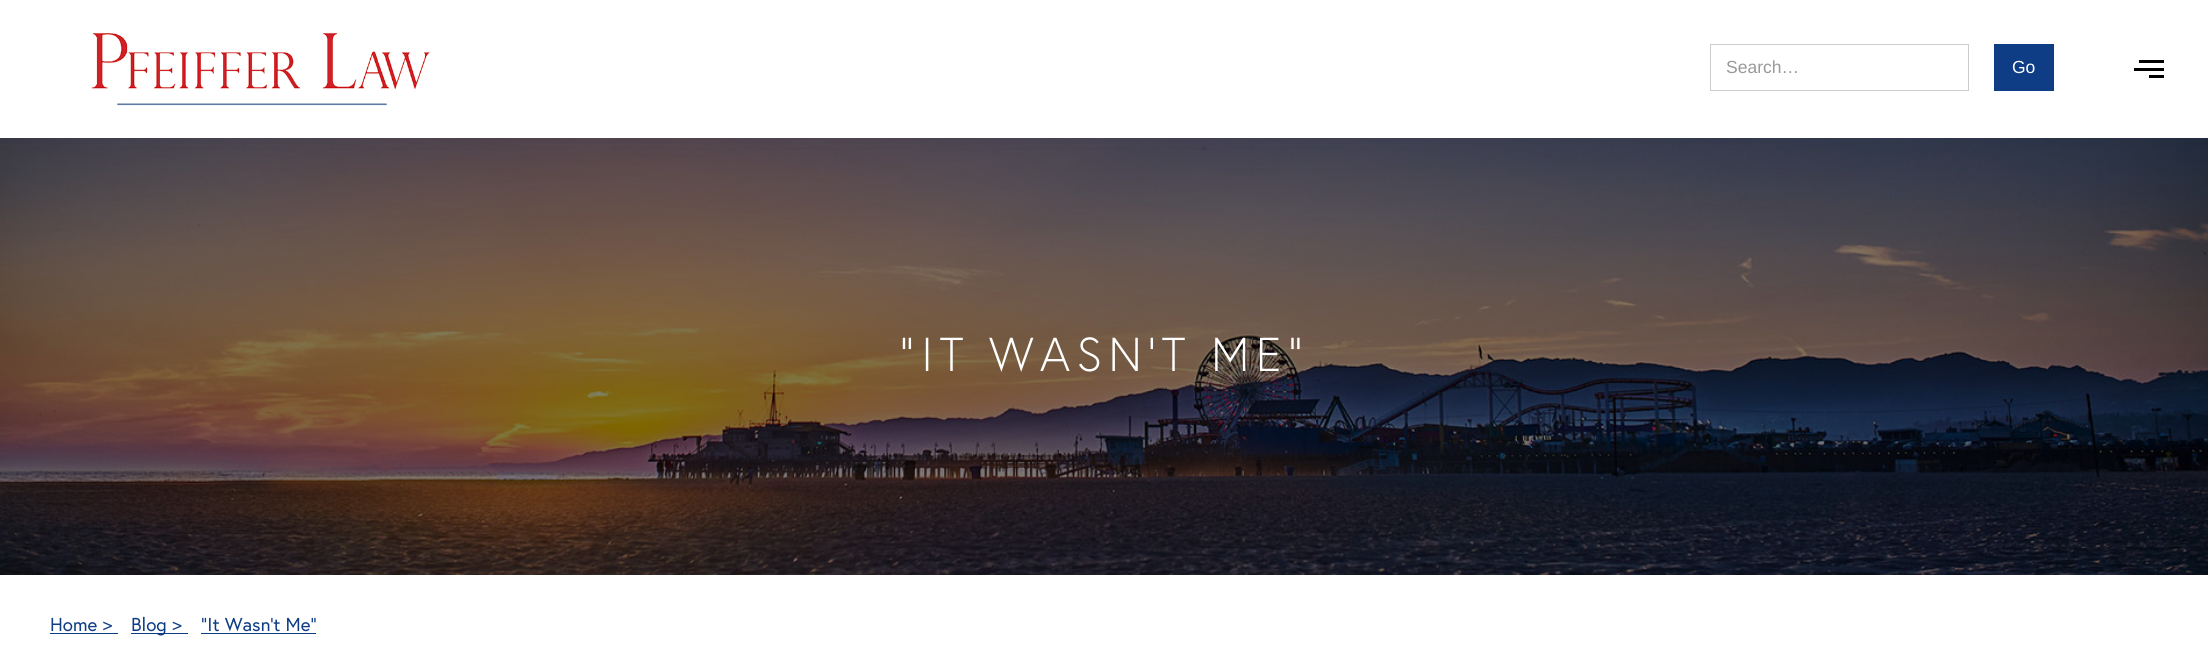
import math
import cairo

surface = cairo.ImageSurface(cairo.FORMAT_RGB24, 2208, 653)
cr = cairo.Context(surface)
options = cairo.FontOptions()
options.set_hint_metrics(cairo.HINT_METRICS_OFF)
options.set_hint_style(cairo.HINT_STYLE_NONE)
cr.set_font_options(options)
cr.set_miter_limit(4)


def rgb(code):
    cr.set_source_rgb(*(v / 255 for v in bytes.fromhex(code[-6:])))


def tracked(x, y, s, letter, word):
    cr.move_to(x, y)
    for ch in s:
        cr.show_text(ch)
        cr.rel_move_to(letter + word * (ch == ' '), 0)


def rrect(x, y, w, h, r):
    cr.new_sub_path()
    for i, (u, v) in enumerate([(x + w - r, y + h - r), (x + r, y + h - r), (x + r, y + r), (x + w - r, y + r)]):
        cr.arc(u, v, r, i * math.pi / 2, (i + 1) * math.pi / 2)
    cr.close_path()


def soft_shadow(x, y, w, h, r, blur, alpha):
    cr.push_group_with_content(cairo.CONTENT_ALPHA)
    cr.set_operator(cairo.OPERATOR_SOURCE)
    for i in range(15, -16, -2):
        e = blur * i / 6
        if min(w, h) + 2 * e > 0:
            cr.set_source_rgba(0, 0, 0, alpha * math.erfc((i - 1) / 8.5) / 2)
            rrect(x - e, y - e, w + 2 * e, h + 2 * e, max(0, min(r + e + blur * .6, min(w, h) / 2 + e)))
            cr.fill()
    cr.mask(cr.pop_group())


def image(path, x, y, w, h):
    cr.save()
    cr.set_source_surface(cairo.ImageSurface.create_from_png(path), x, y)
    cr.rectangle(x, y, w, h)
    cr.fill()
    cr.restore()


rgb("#ffffff")
cr.paint()
image("img/2.png", 0, 138, 2208, 437)
rgb("#2e323c")
soft_shadow(0, 4, 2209, 137, 0, 5.5, 0.09)
rgb("#ffffff")
cr.rectangle(0, 0, 2208, 138)
cr.fill()
image("img/1.png", 91, 33, 339, 73)
cr.rectangle(1710.5, 44.5, 258, 46)
rgb("#cccccc")
cr.set_line_width(1)
cr.stroke()
for x, y, w, h, color in [
    (1994, 44, 60, 47, "#0e3d85"),
    (2139, 60, 25, 3, "#000000"),
    (2134, 68, 30, 3, "#000000"),
    (2149, 75, 15, 3, "#000000"),
    (50, 633, 68, 1, "#0e3d85"),
    (131, 633, 57, 1, "#0e3d85"),
    (201, 633, 115, 1, "#0e3d85"),
]:
    rgb(color)
    cr.rectangle(x, y, w, h)
    cr.fill()
cr.select_font_face("Liberation Sans")
cr.set_font_size(17.5)
rgb("#999999")
cr.move_to(1726, 73)
cr.show_text("Search…")
rgb("#ffffff")
cr.move_to(2012, 73)
cr.show_text("Go")
cr.select_font_face("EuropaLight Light")
cr.set_font_size(47.5)
tracked(899, 371, "\"IT WASN'T ME\"", 6.25, 0)
cr.select_font_face("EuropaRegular")
cr.set_font_size(18.75)
rgb("#0e3d85")
for x, y, s in [
    (50, 631, "Home >"),
    (131, 631, "Blog >"),
    (201, 631, "\"It Wasn't Me\""),
]:
    cr.move_to(x, y)
    cr.show_text(s)
surface.write_to_png("page.png")
